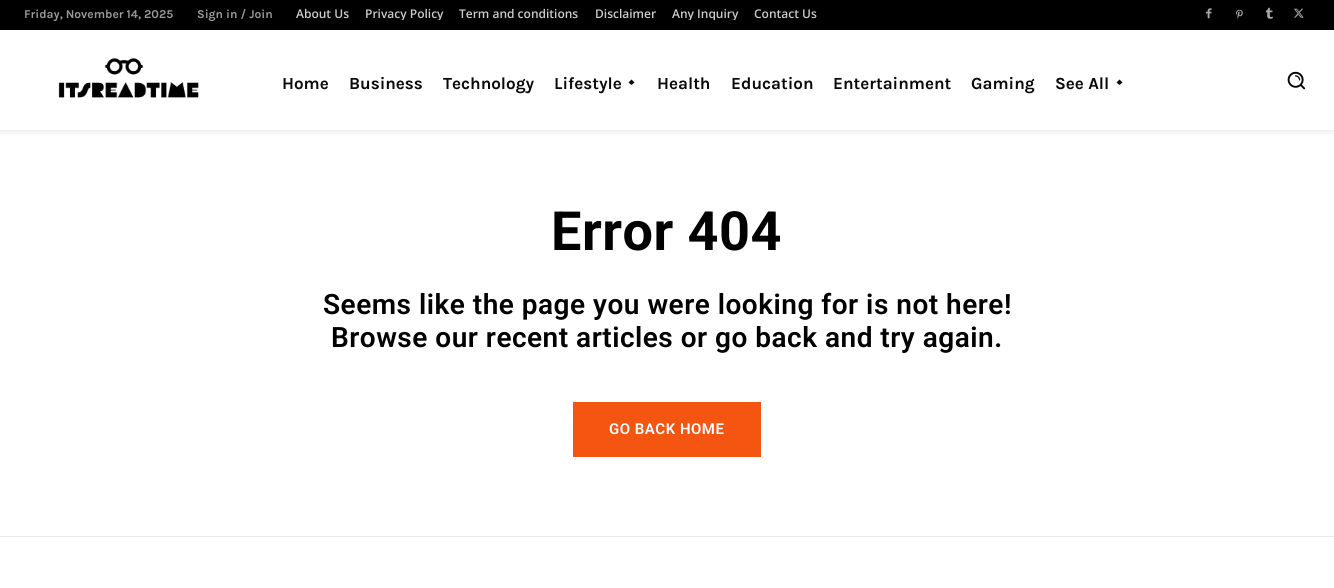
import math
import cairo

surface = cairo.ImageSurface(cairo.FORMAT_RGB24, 1334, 588)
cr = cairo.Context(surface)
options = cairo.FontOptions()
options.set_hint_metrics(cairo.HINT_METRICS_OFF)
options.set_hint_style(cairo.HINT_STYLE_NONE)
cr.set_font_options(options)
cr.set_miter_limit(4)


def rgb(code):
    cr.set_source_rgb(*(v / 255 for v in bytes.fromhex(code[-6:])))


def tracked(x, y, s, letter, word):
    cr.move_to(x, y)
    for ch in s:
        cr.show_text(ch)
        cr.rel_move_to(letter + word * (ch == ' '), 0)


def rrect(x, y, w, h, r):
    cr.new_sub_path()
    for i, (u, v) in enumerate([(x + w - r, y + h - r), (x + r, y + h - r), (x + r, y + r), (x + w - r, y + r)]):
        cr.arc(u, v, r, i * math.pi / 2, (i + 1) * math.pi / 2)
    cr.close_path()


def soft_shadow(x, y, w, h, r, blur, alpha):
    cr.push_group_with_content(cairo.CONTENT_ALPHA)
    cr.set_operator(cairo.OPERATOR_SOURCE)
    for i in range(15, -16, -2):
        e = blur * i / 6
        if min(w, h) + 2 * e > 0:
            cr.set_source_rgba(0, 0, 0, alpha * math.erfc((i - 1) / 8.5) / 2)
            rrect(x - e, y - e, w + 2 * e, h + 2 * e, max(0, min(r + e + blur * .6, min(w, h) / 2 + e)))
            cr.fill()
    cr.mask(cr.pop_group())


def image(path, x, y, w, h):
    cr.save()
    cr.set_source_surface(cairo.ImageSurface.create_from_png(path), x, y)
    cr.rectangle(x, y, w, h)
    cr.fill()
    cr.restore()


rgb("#ffffff")
cr.paint()
cr.save()
cr.rectangle(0, 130, 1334, 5)
cr.clip()
rgb("#000000")
soft_shadow(0, 0, 1334, 130, 0, 5, 0.12)
cr.restore()
rgb("#000000")
cr.rectangle(0, 0, 1334, 30)
cr.fill()
image("img/1.png", 1206, 8, 6, 11)
image("img/2.png", 1236, 9, 7, 10)
image("img/3.png", 1266, 7, 7, 12)
image("img/4.png", 1294, 8, 10, 10)
image("img/5.png", 58, 58, 141, 40)
rgb("#0a0a0a")
cr.new_path()
cr.move_to(634.5, 82.5)
cr.line_to(631.5, 85)
cr.line_to(628.5, 82.5)
cr.line_to(631.5, 79.5)
cr.close_path()
cr.fill()
cr.new_path()
cr.move_to(1122.5, 82.5)
cr.line_to(1119.5, 85)
cr.line_to(1116.5, 82.5)
cr.line_to(1119.5, 79.5)
cr.close_path()
cr.fill()
image("img/6.png", 1287, 71, 19, 19)
rgb("#f45511")
cr.rectangle(573, 402, 188, 55)
cr.fill()
rgb("#eaeaea")
cr.rectangle(0, 536, 1334, 1)
cr.fill()
cr.select_font_face("Karla", cairo.FONT_SLANT_NORMAL, cairo.FONT_WEIGHT_BOLD)
cr.set_font_size(12)
rgb("#999999")
cr.move_to(24, 18)
cr.show_text("Friday, November 14, 2025")
cr.move_to(197, 18)
cr.show_text("Sign in / Join")
cr.select_font_face("Open Sans SemiBold")
rgb("#cccccc")
cr.move_to(296, 18)
cr.show_text("About Us")
cr.save()
cr.rectangle(296, 8, 521, 12)
cr.clip()
cr.move_to(365, 18)
cr.show_text("Privacy Policy")
cr.restore()
cr.move_to(459, 18)
cr.show_text("Term and conditions")
cr.move_to(595, 18)
cr.show_text("Disclaimer")
cr.save()
cr.rectangle(296, 8, 521, 12)
cr.clip()
cr.move_to(672, 18)
cr.show_text("Any Inquiry")
cr.restore()
cr.move_to(754, 18)
cr.show_text("Contact Us")
cr.select_font_face("Karla", cairo.FONT_SLANT_NORMAL, cairo.FONT_WEIGHT_BOLD)
cr.set_font_size(17)
rgb("#0a0a0a")
for x, y, s in [
    (282, 89, "Home"),
    (349, 89, "Business"),
    (443, 89, "Technology"),
    (554, 89, "Lifestyle"),
    (657, 89, "Health"),
    (731, 89, "Education"),
    (833, 89, "Entertainment"),
    (971, 89, "Gaming"),
    (1055, 89, "See All"),
]:
    cr.move_to(x, y)
    cr.show_text(s)
cr.select_font_face("Roboto", cairo.FONT_SLANT_NORMAL, cairo.FONT_WEIGHT_BOLD)
cr.set_font_size(54)
rgb("#000000")
tracked(551, 250, "Error 404", 0.5, 0)
cr.select_font_face("Roboto SemiBold")
cr.set_font_size(28)
tracked(323, 314, "Seems like the page you were looking for is not here!", 0.5, 0)
tracked(331, 347, "Browse our recent articles or go back and try again.", 0.5, 0)
cr.set_font_size(15)
rgb("#ffffff")
tracked(609, 434, "GO BACK HOME", 0.5, 0)
surface.write_to_png("page.png")
